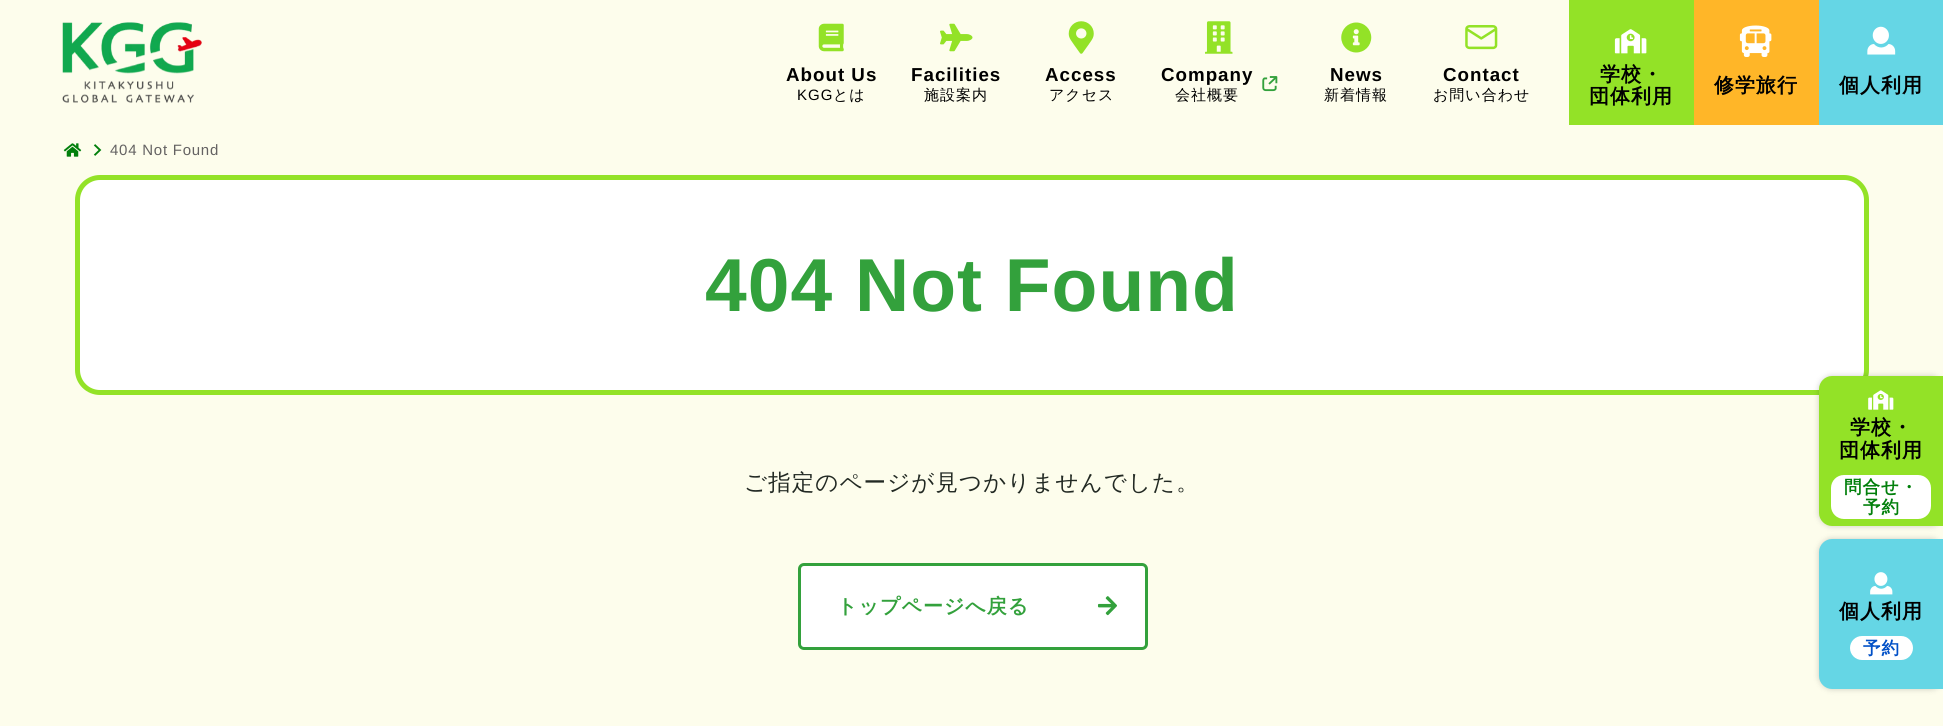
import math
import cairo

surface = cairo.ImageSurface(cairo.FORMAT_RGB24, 1943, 726)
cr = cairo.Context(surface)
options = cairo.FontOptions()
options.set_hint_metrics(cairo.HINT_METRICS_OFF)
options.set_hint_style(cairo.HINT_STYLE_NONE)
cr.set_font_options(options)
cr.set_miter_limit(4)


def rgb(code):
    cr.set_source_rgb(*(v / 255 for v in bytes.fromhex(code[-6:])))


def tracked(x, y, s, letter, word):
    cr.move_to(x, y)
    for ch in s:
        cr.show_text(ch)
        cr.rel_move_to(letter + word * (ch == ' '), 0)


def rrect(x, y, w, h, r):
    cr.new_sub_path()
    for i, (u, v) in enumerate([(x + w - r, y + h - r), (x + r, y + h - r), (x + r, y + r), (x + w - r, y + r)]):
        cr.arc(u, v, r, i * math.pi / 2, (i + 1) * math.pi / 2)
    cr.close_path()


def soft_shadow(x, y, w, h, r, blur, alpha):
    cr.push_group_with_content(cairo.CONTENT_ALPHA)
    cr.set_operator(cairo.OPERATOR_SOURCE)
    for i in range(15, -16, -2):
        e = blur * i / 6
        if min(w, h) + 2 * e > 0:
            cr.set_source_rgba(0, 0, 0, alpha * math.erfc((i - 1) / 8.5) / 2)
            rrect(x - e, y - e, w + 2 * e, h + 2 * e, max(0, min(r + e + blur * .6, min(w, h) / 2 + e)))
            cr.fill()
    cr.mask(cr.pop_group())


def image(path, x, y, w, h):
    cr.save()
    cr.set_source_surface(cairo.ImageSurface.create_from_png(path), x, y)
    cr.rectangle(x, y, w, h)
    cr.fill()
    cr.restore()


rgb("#fdfdec")
cr.paint()
image("img/1.png", 62, 22, 140, 81)
image("img/2.png", 818, 23, 26, 29)
image("img/3.png", 940, 23, 33, 29)
image("img/4.png", 1068, 21, 26, 33)
image("img/5.png", 1205, 21, 28, 33)
image("img/6.png", 1262, 76, 16, 16)
image("img/7.png", 1341, 22, 31, 31)
image("img/8.png", 1465, 25, 33, 25)
rgb("#93e227")
cr.rectangle(1569, 0, 125, 125)
cr.fill()
image("img/9.png", 1614, 29, 33, 25)
rgb("#ffb628")
cr.rectangle(1694, 0, 125, 125)
cr.fill()
image("img/10.png", 1739, 25, 33, 32)
rgb("#65d6e5")
cr.rectangle(1819, 0, 124, 125)
cr.fill()
image("img/11.png", 1867, 26, 29, 29)
image("img/12.png", 63, 143, 19, 14)
image("img/13.png", 93, 144, 9, 12)
rgb("#ffffff")
rrect(77.5, 177.5, 1789, 215, 22.5)
cr.fill_preserve()
rgb("#93e227")
cr.set_line_width(5)
cr.stroke()
rgb("#ffffff")
rrect(799.5, 564.5, 347, 84, 4.5)
cr.fill_preserve()
rgb("#33a13c")
cr.set_line_width(3)
cr.stroke()
image("img/14.png", 1097, 596, 20, 20)
rgb("#000000")
soft_shadow(1819, 376, 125, 150, 13, 3, 0.2)
rgb("#93e227")
cr.new_path()
cr.move_to(1832, 376)
cr.line_to(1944, 376)
cr.line_to(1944, 526)
cr.line_to(1832, 526)
cr.curve_to(1825, 526, 1819, 520, 1819, 513)
cr.line_to(1819, 389)
cr.curve_to(1819, 382, 1825, 376, 1832, 376)
cr.close_path()
cr.fill()
image("img/15.png", 1868, 390, 26, 20)
rgb("#ffffff")
rrect(1831, 475, 100, 44, 13)
cr.fill()
rgb("#000000")
soft_shadow(1819, 539, 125, 150, 13, 3, 0.2)
rgb("#65d6e5")
cr.new_path()
cr.move_to(1832, 539)
cr.line_to(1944, 539)
cr.line_to(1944, 689)
cr.line_to(1832, 689)
cr.curve_to(1825, 689, 1819, 683, 1819, 676)
cr.line_to(1819, 552)
cr.curve_to(1819, 545, 1825, 539, 1832, 539)
cr.close_path()
cr.fill()
image("img/16.png", 1870, 572, 23, 23)
rgb("#ffffff")
rrect(1850, 636, 63, 24, 12)
cr.fill()
cr.select_font_face("Liberation Sans", cairo.FONT_SLANT_NORMAL, cairo.FONT_WEIGHT_BOLD)
cr.set_font_size(18.75)
rgb("#000000")
tracked(786, 81, "About Us", 1, 0)
cr.select_font_face("Liberation Sans")
cr.set_font_size(15)
tracked(797, 100, "KGG", 1, 0)
cr.select_font_face("WenQuanYi Zen Hei Medium")
tracked(833, 100, "とは", 1, 0)
cr.select_font_face("Liberation Sans", cairo.FONT_SLANT_NORMAL, cairo.FONT_WEIGHT_BOLD)
cr.set_font_size(18.75)
tracked(911, 81, "Facilities", 1, 0)
cr.select_font_face("WenQuanYi Zen Hei Medium")
cr.set_font_size(15)
tracked(924, 100, "施設案内", 1, 0)
cr.select_font_face("Liberation Sans", cairo.FONT_SLANT_NORMAL, cairo.FONT_WEIGHT_BOLD)
cr.set_font_size(18.75)
tracked(1045, 81, "Access", 1, 0)
cr.select_font_face("WenQuanYi Zen Hei Medium")
cr.set_font_size(15)
tracked(1049, 100, "アクセス", 1, 0)
cr.select_font_face("Liberation Sans", cairo.FONT_SLANT_NORMAL, cairo.FONT_WEIGHT_BOLD)
cr.set_font_size(18.75)
tracked(1161, 81, "Company", 1, 0)
cr.select_font_face("WenQuanYi Zen Hei Medium")
cr.set_font_size(15)
tracked(1175, 100, "会社概要", 1, 0)
cr.select_font_face("Liberation Sans", cairo.FONT_SLANT_NORMAL, cairo.FONT_WEIGHT_BOLD)
cr.set_font_size(18.75)
tracked(1330, 81, "News", 1, 0)
cr.select_font_face("WenQuanYi Zen Hei Medium")
cr.set_font_size(15)
tracked(1324, 100, "新着情報", 1, 0)
cr.select_font_face("Liberation Sans", cairo.FONT_SLANT_NORMAL, cairo.FONT_WEIGHT_BOLD)
cr.set_font_size(18.75)
tracked(1443, 81, "Contact", 1, 0)
cr.select_font_face("WenQuanYi Zen Hei Medium")
cr.set_font_size(15)
tracked(1433, 100, "お問い合わせ", 1, 0)
cr.select_font_face("WenQuanYi Zen Hei", cairo.FONT_SLANT_NORMAL, cairo.FONT_WEIGHT_BOLD)
cr.set_font_size(20)
for x, y, s in [
    (1600, 81, "学校・"),
    (1589, 103, "団体利用"),
    (1714, 92, "修学旅行"),
    (1839, 92, "個人利用"),
]:
    tracked(x, y, s, 1, 0)
cr.select_font_face("Liberation Sans")
cr.set_font_size(15)
rgb("#646262")
tracked(110, 155, "404 Not Found", 0.75, 0)
cr.select_font_face("Liberation Sans", cairo.FONT_SLANT_NORMAL, cairo.FONT_WEIGHT_BOLD)
cr.set_font_size(75)
rgb("#33a13c")
tracked(705, 311, "404 Not Found", 1, 0)
cr.select_font_face("WenQuanYi Zen Hei Medium")
cr.set_font_size(22.5)
rgb("#222923")
tracked(744, 490, "ご指定のページが見つかりませんでした。", 1.1, 0)
cr.select_font_face("WenQuanYi Zen Hei", cairo.FONT_SLANT_NORMAL, cairo.FONT_WEIGHT_BOLD)
cr.set_font_size(20)
rgb("#33a13c")
tracked(837, 613, "トップページへ戻る", 1, 0)
rgb("#000000")
tracked(1850, 434, "学校・", 1, 0)
tracked(1839, 457, "団体利用", 1, 0)
cr.set_font_size(17.5)
rgb("#017f0b")
tracked(1844, 493, "問合せ・", 1, 0)
tracked(1863, 513, "予約", 1, 0)
cr.set_font_size(20)
rgb("#000000")
tracked(1839, 618, "個人利用", 1, 0)
cr.set_font_size(17.5)
rgb("#0050c7")
tracked(1863, 654, "予約", 1, 0)
surface.write_to_png("page.png")
